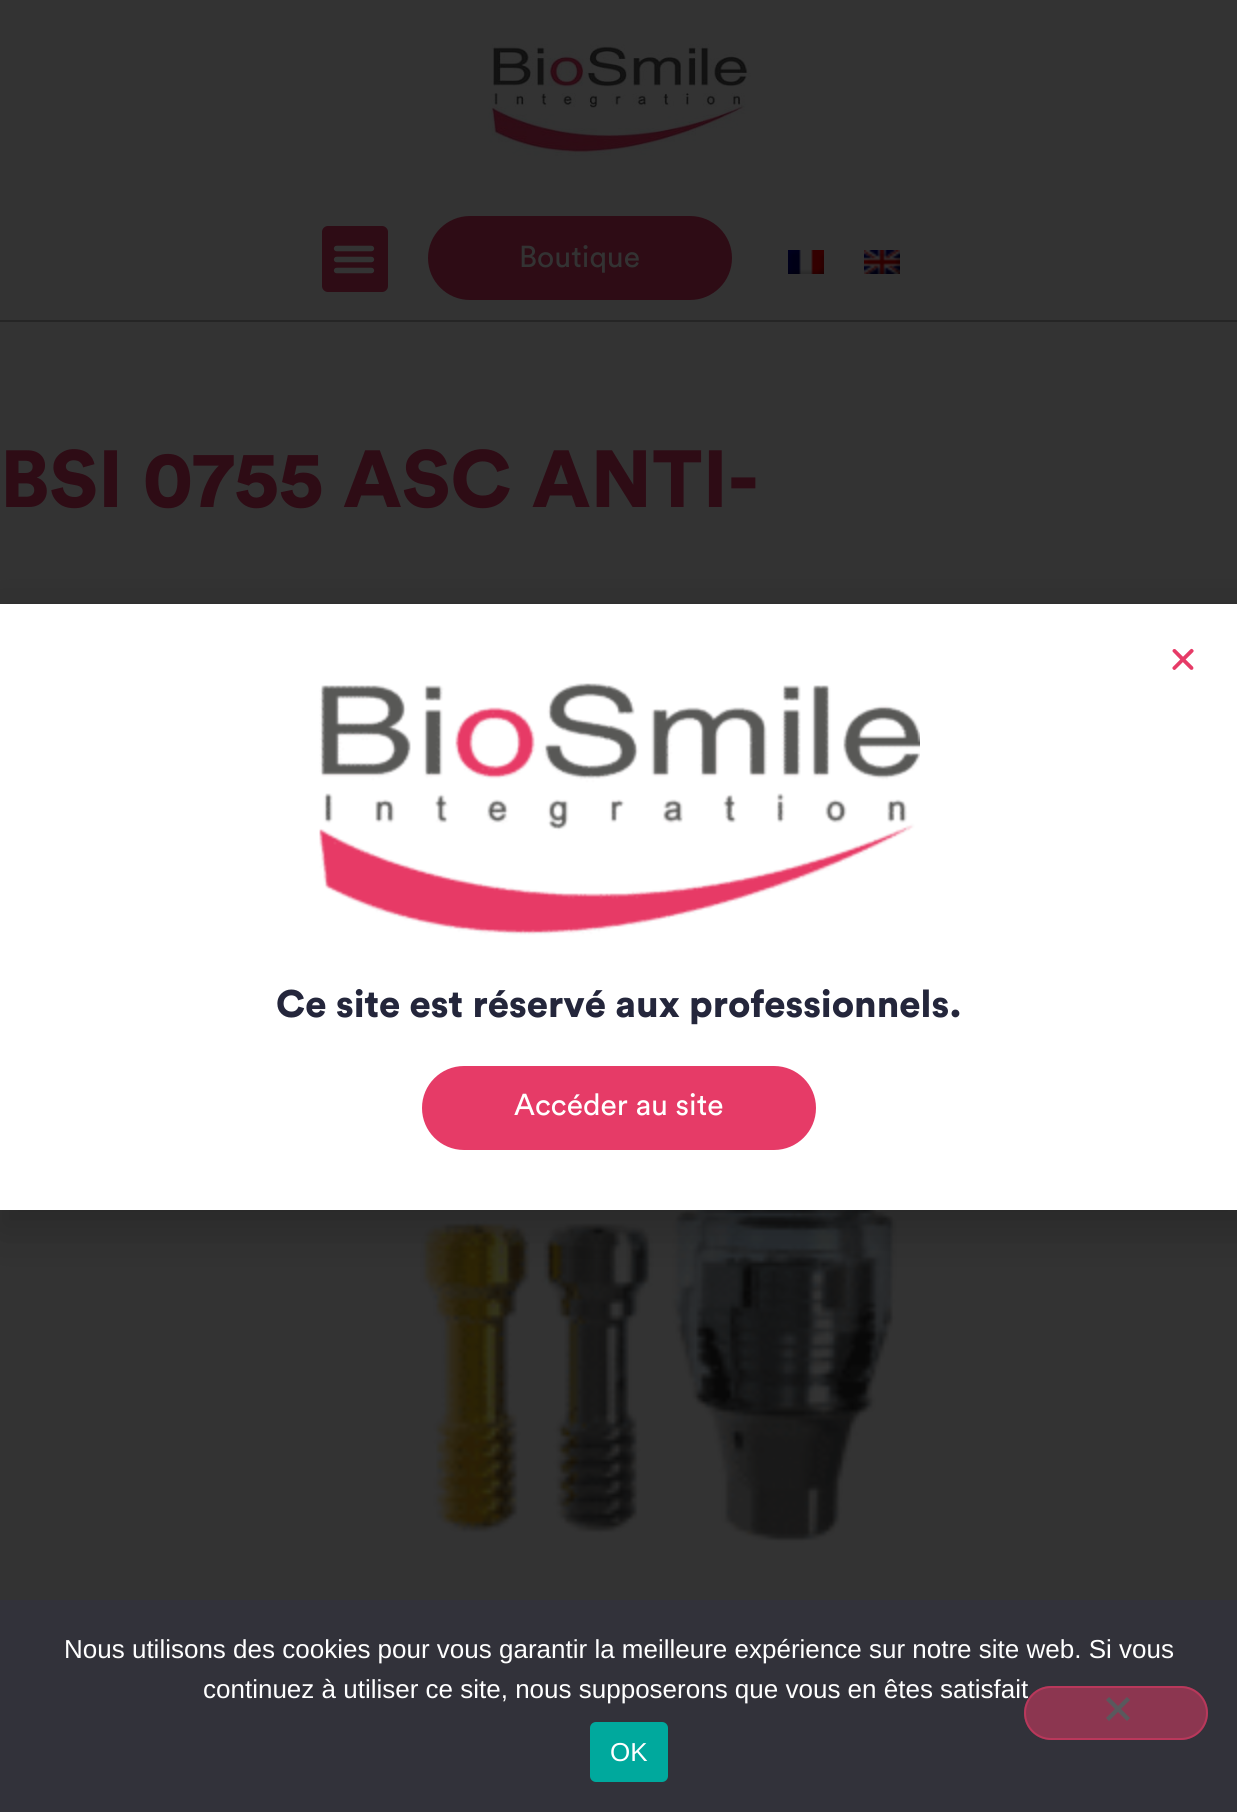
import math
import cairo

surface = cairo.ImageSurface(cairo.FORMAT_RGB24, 1237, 1812)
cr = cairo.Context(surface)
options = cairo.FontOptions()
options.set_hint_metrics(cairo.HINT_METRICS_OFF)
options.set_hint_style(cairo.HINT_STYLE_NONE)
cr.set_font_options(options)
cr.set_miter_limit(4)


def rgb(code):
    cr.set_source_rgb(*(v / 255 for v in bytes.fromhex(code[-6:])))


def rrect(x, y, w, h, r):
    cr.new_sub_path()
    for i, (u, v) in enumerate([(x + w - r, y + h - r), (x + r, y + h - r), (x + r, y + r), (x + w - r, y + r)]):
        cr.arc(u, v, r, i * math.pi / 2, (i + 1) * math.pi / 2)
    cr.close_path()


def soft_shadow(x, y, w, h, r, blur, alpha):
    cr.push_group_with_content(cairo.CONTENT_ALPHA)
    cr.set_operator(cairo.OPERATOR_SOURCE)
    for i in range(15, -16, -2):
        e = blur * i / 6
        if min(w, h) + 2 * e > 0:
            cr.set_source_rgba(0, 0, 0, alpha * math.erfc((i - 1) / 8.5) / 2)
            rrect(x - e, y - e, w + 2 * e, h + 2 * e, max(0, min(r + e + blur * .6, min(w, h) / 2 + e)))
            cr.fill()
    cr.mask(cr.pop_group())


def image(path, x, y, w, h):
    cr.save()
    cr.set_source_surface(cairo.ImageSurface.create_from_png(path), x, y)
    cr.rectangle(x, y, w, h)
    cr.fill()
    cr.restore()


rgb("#333333")
cr.paint()
rgb("#252525")
cr.rectangle(0, 320, 1237, 2)
cr.fill()
image("img/1.png", 488, 44, 263, 112)
rgb("#2e0c15")
rrect(322, 226, 66, 66, 6)
cr.fill()
image("img/2.png", 333, 245, 42, 29)
rrect(429, 217, 302, 82, 41)
cr.fill_preserve()
cr.stroke()
image("img/3.png", 788, 250, 36, 24)
image("img/4.png", 864, 250, 36, 24)
image("img/5.png", 0, 1210, 1237, 333)
rgb("#000000")
soft_shadow(-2, 614, 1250, 618, 0, 23, 0.2)
rgb("#ffffff")
cr.rectangle(0, 604, 1237, 606)
cr.fill()
image("img/6.png", 1172, 648, 22, 22)
image("img/7.png", 319, 683, 601, 252)
rgb("#e63b67")
rrect(423, 1067, 392, 82, 41)
cr.fill_preserve()
cr.stroke()
rgb("#32323a")
cr.rectangle(0, 1600, 1237, 212)
cr.fill()
rgb("#00a99d")
rrect(590, 1722, 78, 60, 6)
cr.fill()
cr.select_font_face("Circular")
cr.set_font_size(30)
rgb("#333333")
cr.move_to(519, 267)
cr.show_text("Boutique")
cr.select_font_face("Circular Black")
cr.set_font_size(80)
rgb("#2e0c15")
cr.move_to(0, 507)
cr.show_text("BSI 0755 ASC ANTI-")
cr.set_font_size(38)
rgb("#24263b")
cr.move_to(276, 1017)
cr.show_text("Ce site est réservé aux professionnels.")
cr.select_font_face("Circular")
cr.set_font_size(30)
rgb("#ffffff")
cr.move_to(514, 1115)
cr.show_text("Accéder au site")
cr.select_font_face("Liberation Sans")
cr.set_font_size(26)
cr.move_to(64, 1658)
cr.show_text("Nous utilisons des cookies pour vous garantir la meilleure expérience sur notre site web. Si vous")
cr.move_to(203, 1698)
cr.show_text("continuez à utiliser ce site, nous supposerons que vous en êtes satisfait")
cr.set_source_rgba(0.902, 0.231, 0.404, 0.5)
rrect(1024, 1686, 184, 54, 27)
cr.fill()
rrect(1025, 1687, 182, 52, 26)
cr.stroke()
rgb("#59595d")
cr.new_path()
cr.move_to(1127, 1697)
cr.line_to(1130, 1700)
cr.line_to(1109, 1721)
cr.line_to(1106, 1718)
cr.close_path()
cr.fill()
cr.new_path()
cr.move_to(1106, 1700)
cr.line_to(1109, 1697)
cr.line_to(1130, 1718)
cr.line_to(1127, 1721)
cr.close_path()
cr.fill()
rgb("#ffffff")
cr.move_to(610, 1761)
cr.show_text("OK")
surface.write_to_png("page.png")
